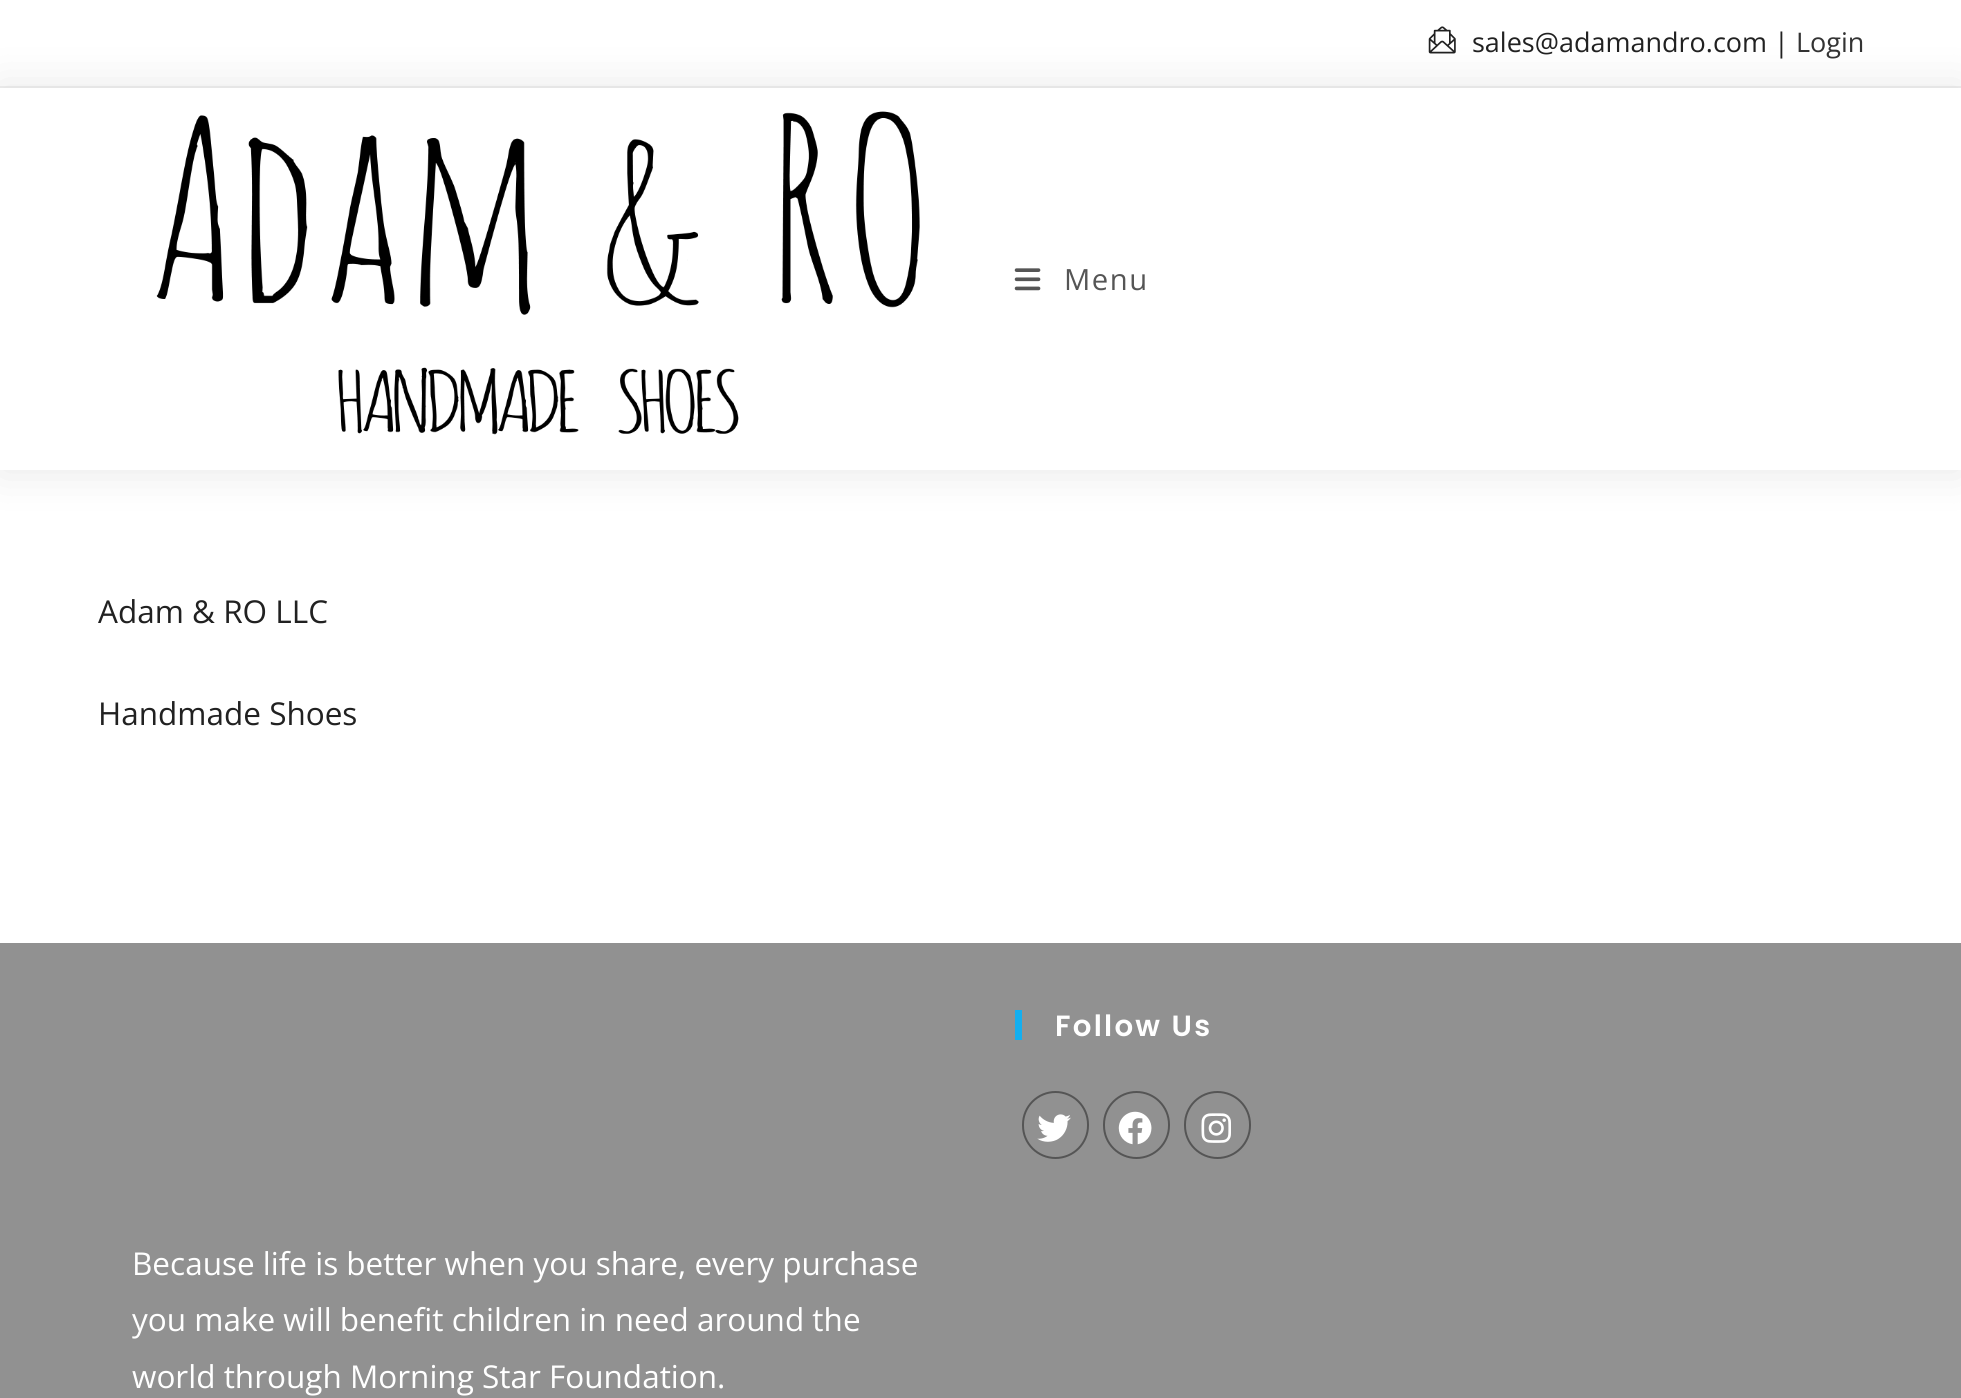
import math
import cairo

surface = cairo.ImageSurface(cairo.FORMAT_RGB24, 1961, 1398)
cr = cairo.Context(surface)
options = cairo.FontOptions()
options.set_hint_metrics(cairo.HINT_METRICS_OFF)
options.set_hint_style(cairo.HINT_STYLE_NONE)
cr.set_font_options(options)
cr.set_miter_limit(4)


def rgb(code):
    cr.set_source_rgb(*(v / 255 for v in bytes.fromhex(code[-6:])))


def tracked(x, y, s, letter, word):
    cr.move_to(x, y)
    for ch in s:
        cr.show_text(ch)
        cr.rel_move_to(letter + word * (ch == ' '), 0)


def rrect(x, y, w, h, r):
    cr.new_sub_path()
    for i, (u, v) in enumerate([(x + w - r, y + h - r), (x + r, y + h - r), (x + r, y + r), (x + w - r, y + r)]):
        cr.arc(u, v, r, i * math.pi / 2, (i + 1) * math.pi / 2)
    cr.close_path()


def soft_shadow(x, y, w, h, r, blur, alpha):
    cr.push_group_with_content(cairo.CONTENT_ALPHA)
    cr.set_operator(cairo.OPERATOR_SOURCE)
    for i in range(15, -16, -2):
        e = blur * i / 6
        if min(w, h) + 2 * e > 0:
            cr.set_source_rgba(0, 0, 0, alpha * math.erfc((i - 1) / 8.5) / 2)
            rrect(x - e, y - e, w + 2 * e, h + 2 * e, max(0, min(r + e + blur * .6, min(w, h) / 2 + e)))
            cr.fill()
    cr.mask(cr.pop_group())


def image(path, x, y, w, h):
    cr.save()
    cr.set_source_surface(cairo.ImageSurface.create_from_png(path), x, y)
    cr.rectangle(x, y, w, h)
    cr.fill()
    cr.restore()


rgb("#ffffff")
cr.paint()
rgb("#f1f1f1")
cr.rectangle(0, 86, 1961, 2)
cr.fill()
image("img/1.png", 1428, 26, 28, 28)
cr.save()
cr.set_fill_rule(cairo.FILL_RULE_EVEN_ODD)
cr.new_path()
cr.move_to(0, 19)
cr.line_to(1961, 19)
cr.line_to(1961, 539)
cr.line_to(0, 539)
cr.close_path()
cr.move_to(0, 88)
cr.line_to(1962, 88)
cr.line_to(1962, 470)
cr.line_to(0, 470)
cr.close_path()
cr.clip()
rgb("#000000")
soft_shadow(0, 88, 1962, 382, 0, 22.5, 0.1)
cr.restore()
image("img/2.png", 156, 111, 764, 324)
image("img/3.png", 1014, 268, 27, 23)
rgb("#919191")
cr.rectangle(0, 943, 1961, 455)
cr.fill()
rgb("#13aff0")
cr.rectangle(1015, 1010, 7, 30)
cr.fill()
rrect(1023, 1092, 65, 66, 32.5)
rgb("#555555")
cr.stroke()
image("img/4.png", 1037, 1114, 34, 28)
rrect(1104, 1092, 65, 66, 32.5)
cr.stroke()
image("img/5.png", 1118, 1111, 34, 34)
rrect(1185, 1092, 65, 66, 32.5)
cr.stroke()
image("img/6.png", 1201, 1113, 30, 30)
cr.select_font_face("Open Sans")
cr.set_font_size(27)
rgb("#212121")
cr.move_to(1472, 52)
cr.show_text("sales@adamandro.com |")
rgb("#333333")
cr.move_to(1796, 52)
cr.show_text("Login")
cr.set_font_size(29.25)
rgb("#555555")
tracked(1064, 290, "Menu", 1.5, 0)
cr.set_font_size(31.5)
rgb("#212121")
cr.move_to(98, 623)
cr.show_text("Adam & RO LLC")
cr.move_to(98, 725)
cr.show_text("Handmade Shoes")
cr.select_font_face("Poppins SemiBold")
cr.set_font_size(29.25)
rgb("#ffffff")
tracked(1055, 1036, "Follow Us", 2.25, 0)
cr.select_font_face("Open Sans")
cr.set_font_size(31.5)
for x, y, s in [
    (132, 1275, "Because life is better when you share, every purchase"),
    (132, 1331, "you make will benefit children in need around the"),
    (132, 1388, "world through Morning Star Foundation."),
]:
    cr.move_to(x, y)
    cr.show_text(s)
surface.write_to_png("page.png")
